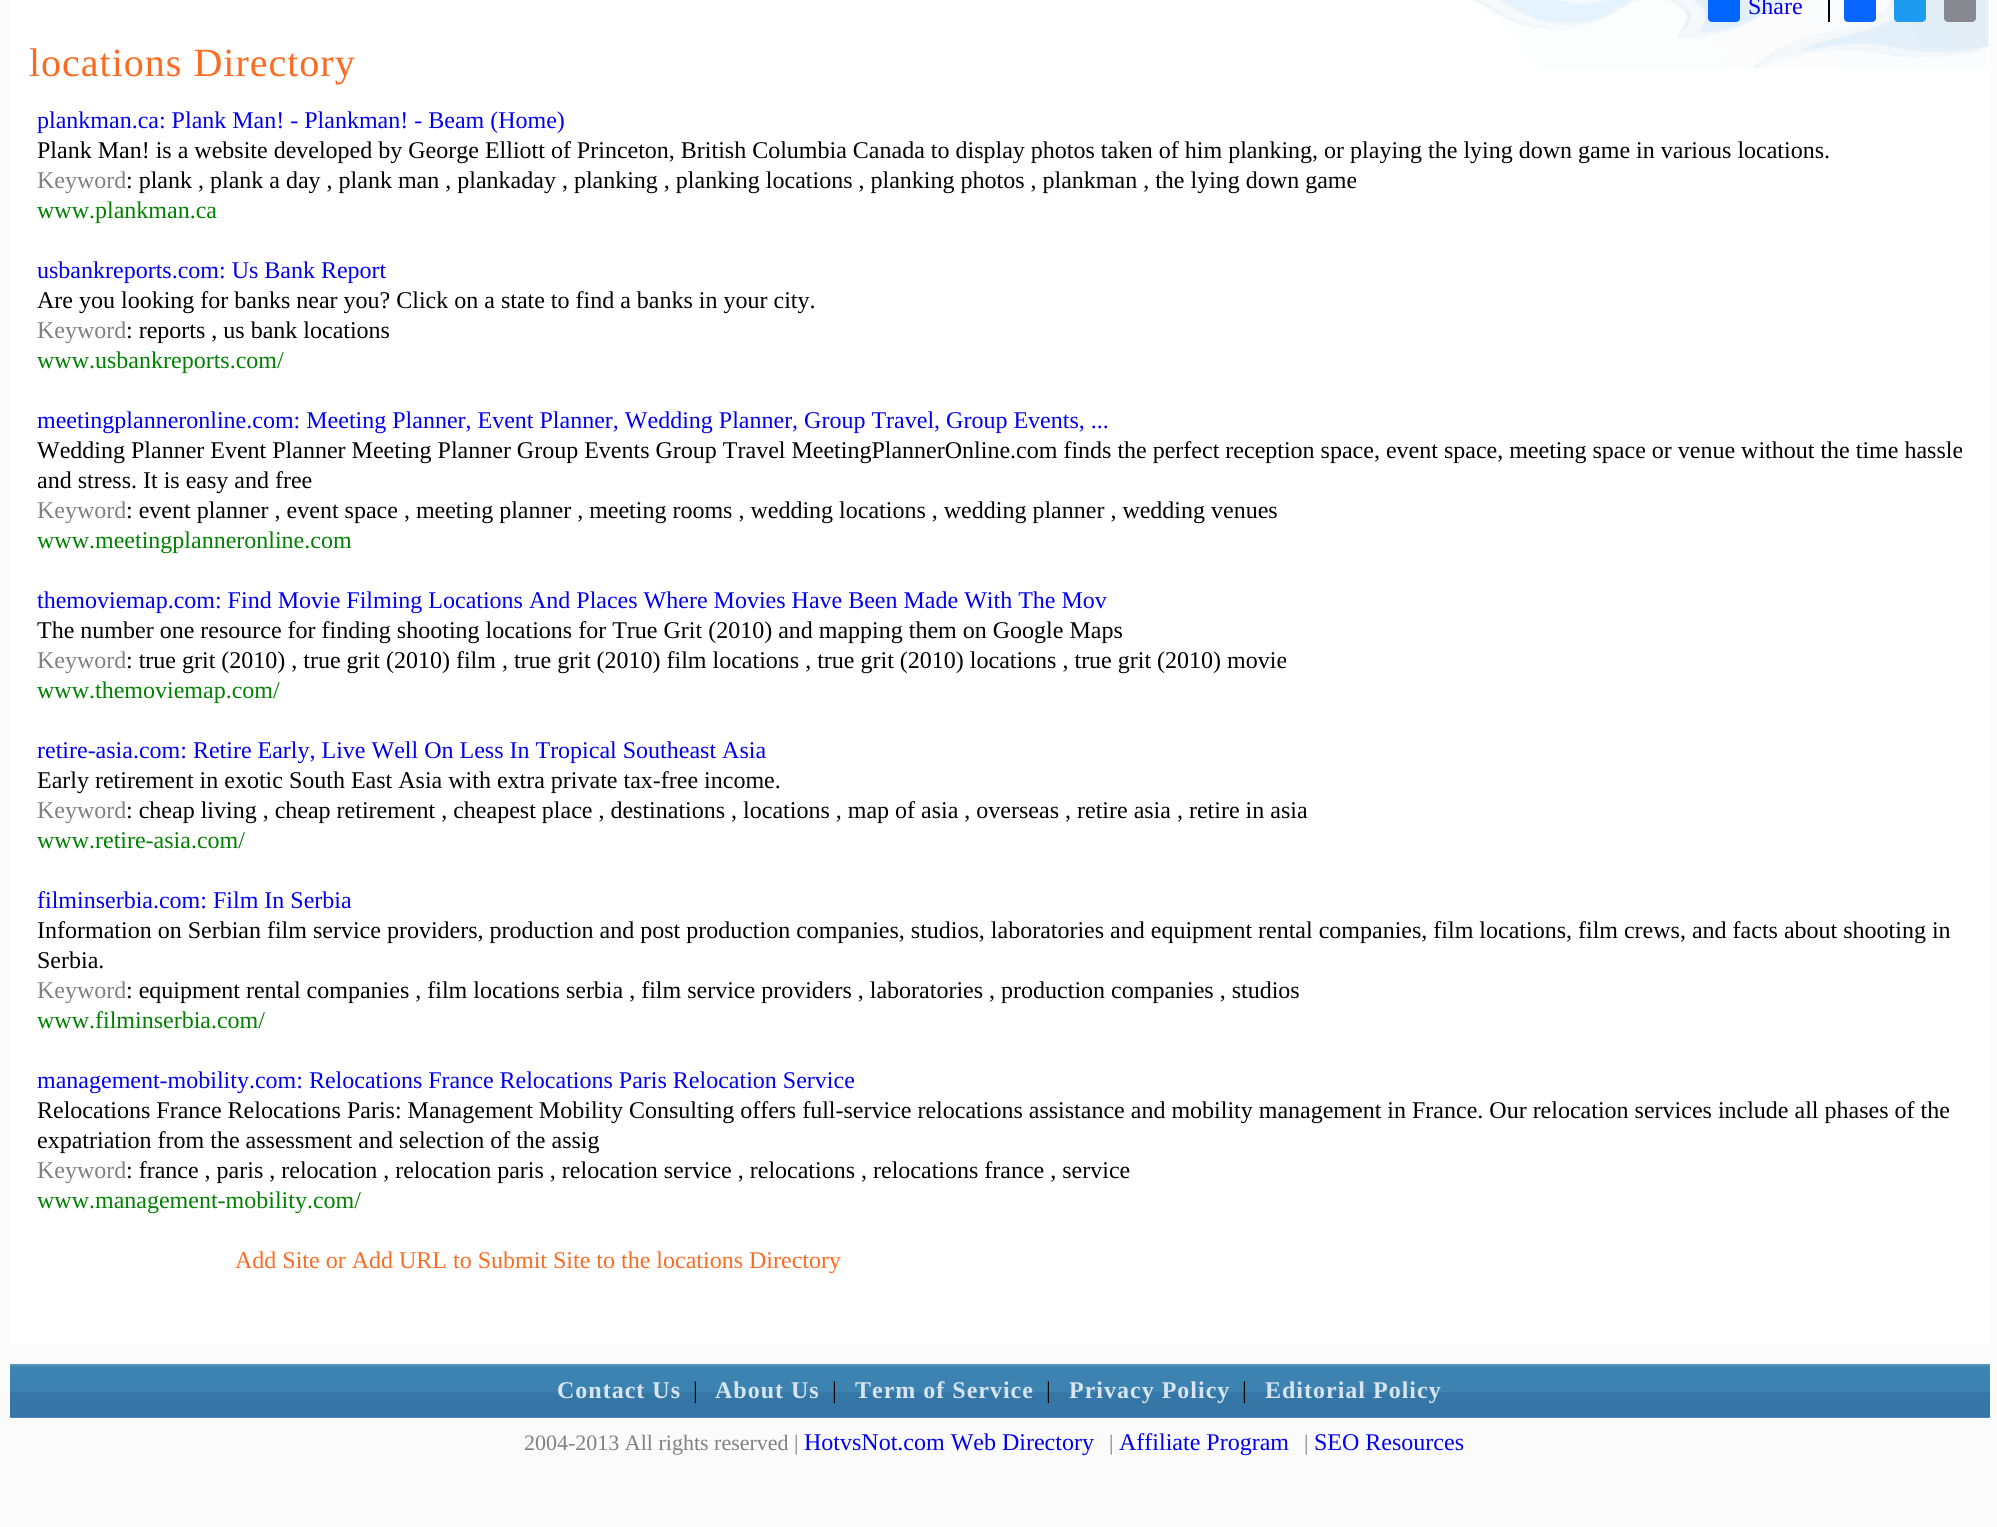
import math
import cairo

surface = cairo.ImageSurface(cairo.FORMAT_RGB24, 1997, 1527)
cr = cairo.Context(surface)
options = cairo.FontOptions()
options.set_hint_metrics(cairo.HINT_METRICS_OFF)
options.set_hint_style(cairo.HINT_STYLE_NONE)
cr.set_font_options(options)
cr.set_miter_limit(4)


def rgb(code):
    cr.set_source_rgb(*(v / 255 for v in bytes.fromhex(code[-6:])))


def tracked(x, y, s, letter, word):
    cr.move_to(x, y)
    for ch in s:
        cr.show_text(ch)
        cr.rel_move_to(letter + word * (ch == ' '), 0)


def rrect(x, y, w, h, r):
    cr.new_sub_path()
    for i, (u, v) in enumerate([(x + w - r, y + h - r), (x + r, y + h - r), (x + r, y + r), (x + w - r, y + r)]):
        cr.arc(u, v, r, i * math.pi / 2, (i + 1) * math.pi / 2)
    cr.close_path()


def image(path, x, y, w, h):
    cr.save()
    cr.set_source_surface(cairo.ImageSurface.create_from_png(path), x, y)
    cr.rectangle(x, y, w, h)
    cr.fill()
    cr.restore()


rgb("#fbfbfc")
cr.paint()
rgb("#ffffff")
cr.rectangle(10, 0, 1980, 1344)
cr.fill()
image("img/1.png", 1472, 0, 517, 69)
rgb("#0166ff")
rrect(1708, -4, 32, 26, 4)
cr.fill()
rgb("#000000")
cr.rectangle(1828, 0, 2, 22)
cr.fill()
rgb("#0866ff")
rrect(1844, -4, 32, 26, 4)
cr.fill()
rgb("#1d9bf0")
rrect(1894, -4, 32, 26, 4)
cr.fill()
rgb("#888990")
rrect(1944, -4, 32, 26, 4)
cr.fill()
image("img/2.png", 10, 1364, 1980, 54)
cr.select_font_face("Liberation Serif")
cr.set_font_size(24)
rgb("#0000ee")
cr.move_to(1748, 14)
cr.show_text("Share")
cr.set_font_size(40)
rgb("#fc6b22")
tracked(29, 76, "locations Directory", 1, 0)
cr.set_font_size(24)
rgb("#0000ee")
cr.move_to(37, 128)
cr.show_text("plankman.ca: Plank Man! - Plankman! - Beam (Home)")
rgb("#000000")
cr.move_to(37, 158)
cr.show_text("Plank Man! is a website developed by George Elliott of Princeton, British Columbia Canada to display photos taken of him planking, or playing the lying down game in various locations.")
rgb("#808080")
cr.move_to(37, 188)
cr.show_text("Keyword")
rgb("#000000")
cr.move_to(126, 188)
cr.show_text(": plank , plank a day , plank man , plankaday , planking , planking locations , planking photos , plankman , the lying down game")
rgb("#008000")
cr.move_to(37, 218)
cr.show_text("www.plankman.ca")
rgb("#0000ee")
cr.move_to(37, 278)
cr.show_text("usbankreports.com: Us Bank Report")
rgb("#000000")
cr.move_to(37, 308)
cr.show_text("Are you looking for banks near you? Click on a state to find a banks in your city.")
rgb("#808080")
cr.move_to(37, 338)
cr.show_text("Keyword")
rgb("#000000")
cr.move_to(126, 338)
cr.show_text(": reports , us bank locations")
rgb("#008000")
cr.move_to(37, 368)
cr.show_text("www.usbankreports.com/")
rgb("#0000ee")
cr.move_to(37, 428)
cr.show_text("meetingplanneronline.com: Meeting Planner, Event Planner, Wedding Planner, Group Travel, Group Events, ...")
rgb("#000000")
cr.move_to(37, 458)
cr.show_text("Wedding Planner Event Planner Meeting Planner Group Events Group Travel MeetingPlannerOnline.com finds the perfect reception space, event space, meeting space or venue without the time hassle")
cr.move_to(37, 488)
cr.show_text("and stress. It is easy and free")
rgb("#808080")
cr.move_to(37, 518)
cr.show_text("Keyword")
rgb("#000000")
cr.move_to(126, 518)
cr.show_text(": event planner , event space , meeting planner , meeting rooms , wedding locations , wedding planner , wedding venues")
rgb("#008000")
cr.move_to(37, 548)
cr.show_text("www.meetingplanneronline.com")
rgb("#0000ee")
cr.move_to(37, 608)
cr.show_text("themoviemap.com: Find Movie Filming Locations And Places Where Movies Have Been Made With The Mov")
rgb("#000000")
cr.move_to(37, 638)
cr.show_text("The number one resource for finding shooting locations for True Grit (2010) and mapping them on Google Maps")
rgb("#808080")
cr.move_to(37, 668)
cr.show_text("Keyword")
rgb("#000000")
cr.move_to(126, 668)
cr.show_text(": true grit (2010) , true grit (2010) film , true grit (2010) film locations , true grit (2010) locations , true grit (2010) movie")
rgb("#008000")
cr.move_to(37, 698)
cr.show_text("www.themoviemap.com/")
rgb("#0000ee")
cr.move_to(37, 758)
cr.show_text("retire-asia.com: Retire Early, Live Well On Less In Tropical Southeast Asia")
rgb("#000000")
cr.move_to(37, 788)
cr.show_text("Early retirement in exotic South East Asia with extra private tax-free income.")
rgb("#808080")
cr.move_to(37, 818)
cr.show_text("Keyword")
rgb("#000000")
cr.move_to(126, 818)
cr.show_text(": cheap living , cheap retirement , cheapest place , destinations , locations , map of asia , overseas , retire asia , retire in asia")
rgb("#008000")
cr.move_to(37, 848)
cr.show_text("www.retire-asia.com/")
rgb("#0000ee")
cr.move_to(37, 908)
cr.show_text("filminserbia.com: Film In Serbia")
rgb("#000000")
cr.move_to(37, 938)
cr.show_text("Information on Serbian film service providers, production and post production companies, studios, laboratories and equipment rental companies, film locations, film crews, and facts about shooting in")
cr.move_to(37, 968)
cr.show_text("Serbia.")
rgb("#808080")
cr.move_to(37, 998)
cr.show_text("Keyword")
rgb("#000000")
cr.move_to(126, 998)
cr.show_text(": equipment rental companies , film locations serbia , film service providers , laboratories , production companies , studios")
rgb("#008000")
cr.move_to(37, 1028)
cr.show_text("www.filminserbia.com/")
rgb("#0000ee")
cr.move_to(37, 1088)
cr.show_text("management-mobility.com: Relocations France Relocations Paris Relocation Service")
rgb("#000000")
cr.move_to(37, 1118)
cr.show_text("Relocations France Relocations Paris: Management Mobility Consulting offers full-service relocations assistance and mobility management in France. Our relocation services include all phases of the")
cr.move_to(37, 1148)
cr.show_text("expatriation from the assessment and selection of the assig")
rgb("#808080")
cr.move_to(37, 1178)
cr.show_text("Keyword")
rgb("#000000")
cr.move_to(126, 1178)
cr.show_text(": france , paris , relocation , relocation paris , relocation service , relocations , relocations france , service")
rgb("#008000")
cr.move_to(37, 1208)
cr.show_text("www.management-mobility.com/")
rgb("#fc6b22")
cr.move_to(235, 1268)
cr.show_text("Add Site or Add URL to Submit Site to the locations Directory")
cr.select_font_face("Liberation Serif", cairo.FONT_SLANT_NORMAL, cairo.FONT_WEIGHT_BOLD)
rgb("#d8e5f0")
tracked(557, 1398, "Contact Us", 1, 0)
cr.select_font_face("Liberation Serif")
rgb("#000000")
cr.move_to(693, 1398)
cr.show_text("|")
cr.select_font_face("Liberation Serif", cairo.FONT_SLANT_NORMAL, cairo.FONT_WEIGHT_BOLD)
rgb("#d8e5f0")
tracked(715, 1398, "About Us", 1, 0)
cr.select_font_face("Liberation Serif")
rgb("#000000")
cr.move_to(832, 1398)
cr.show_text("|")
cr.select_font_face("Liberation Serif", cairo.FONT_SLANT_NORMAL, cairo.FONT_WEIGHT_BOLD)
rgb("#d8e5f0")
tracked(855, 1398, "Term of Service", 1, 0)
cr.select_font_face("Liberation Serif")
rgb("#000000")
cr.move_to(1046, 1398)
cr.show_text("|")
cr.select_font_face("Liberation Serif", cairo.FONT_SLANT_NORMAL, cairo.FONT_WEIGHT_BOLD)
rgb("#d8e5f0")
tracked(1069, 1398, "Privacy Policy", 1, 0)
cr.select_font_face("Liberation Serif")
rgb("#000000")
cr.move_to(1242, 1398)
cr.show_text("|")
cr.select_font_face("Liberation Serif", cairo.FONT_SLANT_NORMAL, cairo.FONT_WEIGHT_BOLD)
rgb("#d8e5f0")
tracked(1265, 1398, "Editorial Policy", 1, 0)
cr.select_font_face("Liberation Serif")
cr.set_font_size(22)
rgb("#808080")
cr.move_to(524, 1450)
cr.show_text("2004-2013 All rights reserved |")
cr.set_font_size(24)
rgb("#0000ee")
cr.move_to(804, 1450)
cr.show_text("HotvsNot.com Web Directory")
cr.set_font_size(22)
rgb("#808080")
cr.move_to(1109, 1450)
cr.show_text("|")
cr.set_font_size(24)
rgb("#0000ee")
cr.move_to(1119, 1450)
cr.show_text("Affiliate Program")
cr.set_font_size(22)
rgb("#808080")
cr.move_to(1304, 1450)
cr.show_text("|")
cr.set_font_size(24)
rgb("#0000ee")
cr.move_to(1314, 1450)
cr.show_text("SEO Resources")
surface.write_to_png("page.png")
